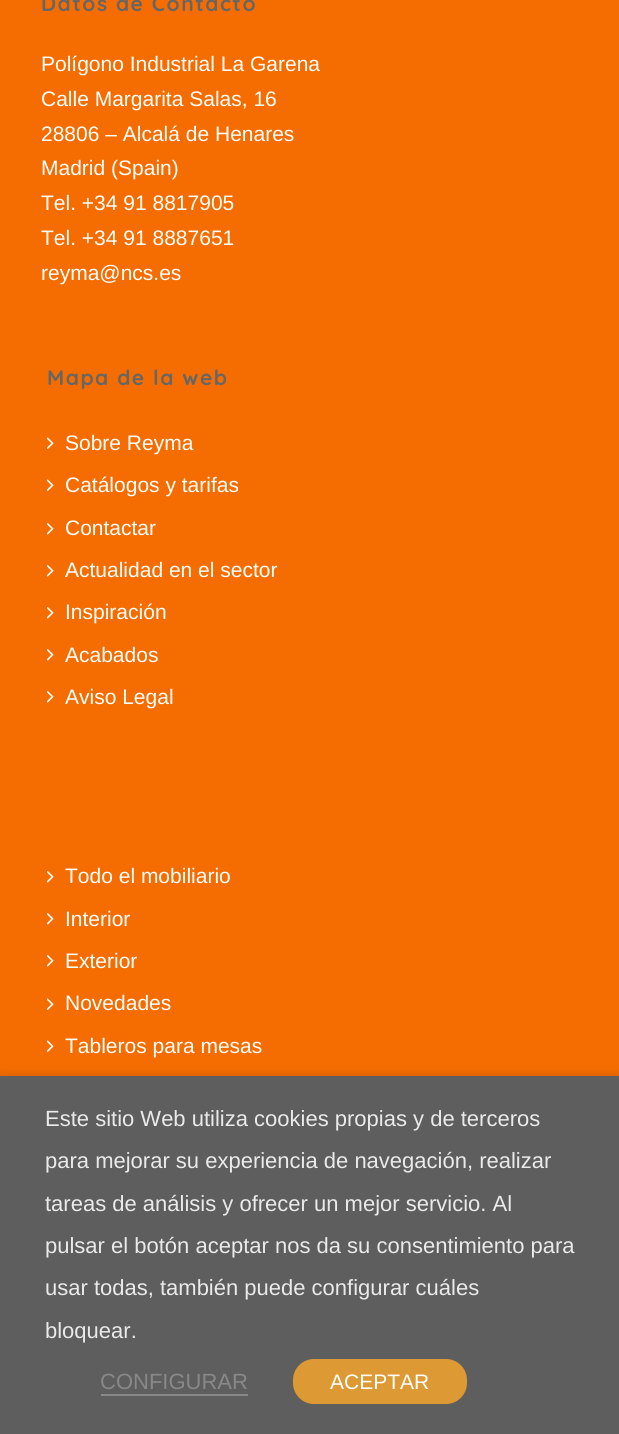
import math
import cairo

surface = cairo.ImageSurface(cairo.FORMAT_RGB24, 619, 1434)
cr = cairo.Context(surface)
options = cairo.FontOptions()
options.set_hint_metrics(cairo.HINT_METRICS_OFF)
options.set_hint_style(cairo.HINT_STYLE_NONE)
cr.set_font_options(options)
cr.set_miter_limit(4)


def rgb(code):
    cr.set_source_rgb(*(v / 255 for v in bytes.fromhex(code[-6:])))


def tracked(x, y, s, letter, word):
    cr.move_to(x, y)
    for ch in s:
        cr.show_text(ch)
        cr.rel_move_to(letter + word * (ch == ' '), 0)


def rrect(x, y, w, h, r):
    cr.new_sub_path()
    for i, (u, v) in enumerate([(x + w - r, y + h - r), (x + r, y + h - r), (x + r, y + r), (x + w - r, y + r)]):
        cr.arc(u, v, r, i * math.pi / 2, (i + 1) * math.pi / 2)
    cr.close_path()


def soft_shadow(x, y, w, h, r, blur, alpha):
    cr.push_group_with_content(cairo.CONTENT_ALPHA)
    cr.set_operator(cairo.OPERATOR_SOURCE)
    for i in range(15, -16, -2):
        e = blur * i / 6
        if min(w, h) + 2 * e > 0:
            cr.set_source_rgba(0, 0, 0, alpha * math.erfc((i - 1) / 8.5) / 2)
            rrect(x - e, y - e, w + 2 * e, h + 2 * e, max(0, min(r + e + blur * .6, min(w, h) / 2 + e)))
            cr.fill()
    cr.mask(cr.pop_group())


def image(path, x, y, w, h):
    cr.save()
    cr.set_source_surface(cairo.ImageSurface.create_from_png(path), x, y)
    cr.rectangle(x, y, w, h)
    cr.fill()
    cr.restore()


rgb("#f56d01")
cr.paint()
image("img/1.png", 47, 437, 7, 12)
image("img/1.png", 47, 479, 7, 12)
image("img/2.png", 47, 523, 7, 12)
image("img/2.png", 47, 565, 7, 12)
image("img/2.png", 47, 607, 7, 12)
image("img/2.png", 47, 649, 7, 12)
image("img/2.png", 47, 691, 7, 12)
image("img/2.png", 47, 871, 7, 12)
image("img/2.png", 47, 913, 7, 12)
image("img/2.png", 47, 955, 7, 12)
image("img/1.png", 47, 998, 7, 12)
image("img/1.png", 47, 1040, 7, 12)
rgb("#000000")
soft_shadow(0, 1083, 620, 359, 0, 7.5, 0.5)
rgb("#5e5e5e")
cr.rectangle(0, 1076, 619, 358)
cr.fill()
rgb("#898888")
cr.rectangle(101, 1394, 147, 2)
cr.fill()
rgb("#dd9933")
rrect(293, 1359, 174, 45, 21)
cr.fill()
cr.select_font_face("Quicksand", cairo.FONT_SLANT_NORMAL, cairo.FONT_WEIGHT_BOLD)
cr.set_font_size(21)
rgb("#666666")
tracked(41, 11, "Datos de Contacto", 1.5, 0)
cr.select_font_face("Liberation Sans")
rgb("#ffffff")
for x, y, s in [
    (41, 71, "Polígono Industrial La Garena"),
    (41, 106, "Calle Margarita Salas, 16"),
    (41, 141, "28806 – Alcalá de Henares"),
    (41, 175, "Madrid (Spain)"),
    (41, 210, "Tel. +34 91 8817905"),
    (41, 245, "Tel. +34 91 8887651"),
    (41, 280, "reyma@ncs.es"),
]:
    cr.move_to(x, y)
    cr.show_text(s)
cr.select_font_face("Quicksand", cairo.FONT_SLANT_NORMAL, cairo.FONT_WEIGHT_BOLD)
rgb("#666666")
tracked(47, 385, "Mapa de la web", 1.5, 0)
cr.select_font_face("Liberation Sans")
rgb("#ffffff")
for x, y, s in [
    (65, 450, "Sobre Reyma"),
    (65, 492, "Catálogos y tarifas"),
    (65, 535, "Contactar"),
    (65, 577, "Actualidad en el sector"),
    (65, 619, "Inspiración"),
    (65, 662, "Acabados"),
    (65, 704, "Aviso Legal"),
    (65, 883, "Todo el mobiliario"),
    (65, 926, "Interior"),
    (65, 968, "Exterior"),
    (65, 1010, "Novedades"),
    (65, 1053, "Tableros para mesas"),
]:
    cr.move_to(x, y)
    cr.show_text(s)
cr.set_font_size(22)
rgb("#eaeaea")
for x, y, s in [
    (45, 1126, "Este sitio Web utiliza cookies propias y de terceros"),
    (45, 1168, "para mejorar su experiencia de navegación, realizar"),
    (45, 1211, "tareas de análisis y ofrecer un mejor servicio. Al"),
    (45, 1253, "pulsar el botón aceptar nos da su consentimiento para"),
    (45, 1295, "usar todas, también puede configurar cuáles"),
    (45, 1338, "bloquear."),
]:
    cr.move_to(x, y)
    cr.show_text(s)
rgb("#898888")
cr.move_to(100, 1389)
cr.show_text("CONFIGURAR")
cr.set_font_size(21)
rgb("#ffffff")
cr.move_to(330, 1389)
cr.show_text("ACEPTAR")
surface.write_to_png("page.png")
